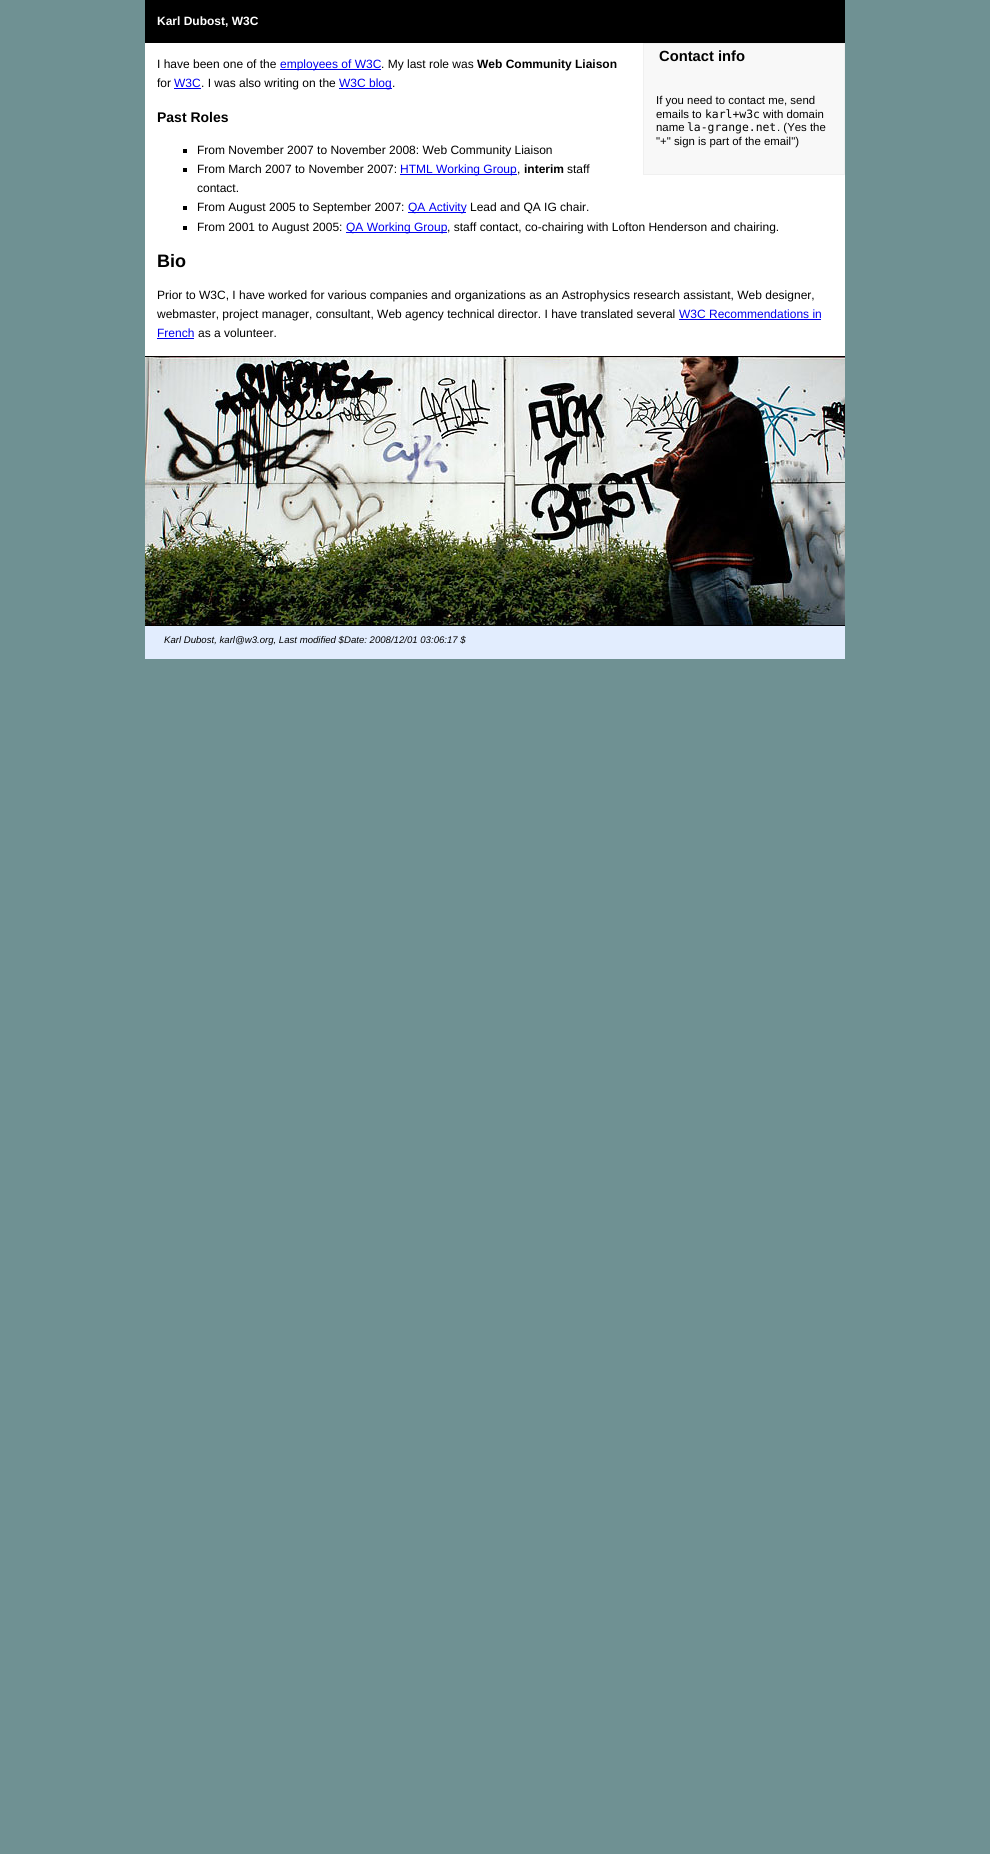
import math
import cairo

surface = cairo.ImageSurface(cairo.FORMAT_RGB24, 990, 1854)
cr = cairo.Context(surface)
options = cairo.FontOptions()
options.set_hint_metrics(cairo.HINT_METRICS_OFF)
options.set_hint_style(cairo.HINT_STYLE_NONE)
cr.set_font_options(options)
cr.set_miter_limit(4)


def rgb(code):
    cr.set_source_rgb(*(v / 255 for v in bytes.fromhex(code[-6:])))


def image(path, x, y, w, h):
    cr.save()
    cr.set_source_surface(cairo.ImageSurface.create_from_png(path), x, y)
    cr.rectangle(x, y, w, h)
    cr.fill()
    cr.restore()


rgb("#6f9193")
cr.paint()
rgb("#ffffff")
cr.rectangle(145, 43, 700, 313)
cr.fill()
rgb("#000000")
cr.rectangle(145, 0, 700, 43)
cr.fill()
image("img/1.png", 145, 356, 700, 270)
for x, y, w, h, color in [
    (280, 69, 101, 1, "#0000ee"),
    (174, 88, 27, 1, "#0000ee"),
    (339, 88, 53, 1, "#0000ee"),
    (644, 44, 200, 130, "#f8f8f8"),
]:
    rgb(color)
    cr.rectangle(x, y, w, h)
    cr.fill()
cr.rectangle(643.5, 43.5, 201, 131)
rgb("#f0f0f0")
cr.set_line_width(1)
cr.stroke()
for x, y, w, h, color in [
    (183, 149, 4, 4, "#000000"),
    (183, 168, 4, 4, "#000000"),
    (400, 174, 117, 1, "#0000ee"),
    (183, 206, 4, 4, "#000000"),
    (408, 212, 58, 1, "#0000ee"),
    (183, 226, 4, 4, "#000000"),
    (346, 232, 101, 1, "#0000ee"),
    (679, 319, 142, 1, "#0000ee"),
    (157, 338, 37, 1, "#0000ee"),
    (145, 626, 700, 33, "#e2edfe"),
]:
    rgb(color)
    cr.rectangle(x, y, w, h)
    cr.fill()
cr.select_font_face("Liberation Sans", cairo.FONT_SLANT_NORMAL, cairo.FONT_WEIGHT_BOLD)
cr.set_font_size(12)
rgb("#ffffff")
cr.move_to(157, 25)
cr.show_text("Karl Dubost, W3C")
cr.select_font_face("Liberation Sans")
rgb("#000000")
cr.move_to(157, 68)
cr.show_text("I have been one of the")
rgb("#0000ee")
cr.move_to(280, 68)
cr.show_text("employees of W3C")
rgb("#000000")
cr.move_to(381, 68)
cr.show_text(". My last role was")
cr.select_font_face("Liberation Sans", cairo.FONT_SLANT_NORMAL, cairo.FONT_WEIGHT_BOLD)
cr.move_to(477, 68)
cr.show_text("Web Community Liaison")
cr.select_font_face("Liberation Sans")
cr.move_to(157, 87)
cr.show_text("for")
rgb("#0000ee")
cr.move_to(174, 87)
cr.show_text("W3C")
rgb("#000000")
cr.move_to(201, 87)
cr.show_text(". I was also writing on the")
rgb("#0000ee")
cr.move_to(339, 87)
cr.show_text("W3C blog")
rgb("#000000")
cr.move_to(392, 87)
cr.show_text(".")
cr.select_font_face("Liberation Sans", cairo.FONT_SLANT_NORMAL, cairo.FONT_WEIGHT_BOLD)
cr.set_font_size(14.75)
cr.move_to(659, 61)
cr.show_text("Contact info")
cr.select_font_face("Liberation Sans")
cr.set_font_size(11.4)
cr.move_to(656, 104)
cr.show_text("If you need to contact me, send")
cr.move_to(656, 118)
cr.show_text("emails to")
cr.select_font_face("DejaVu Sans Mono")
cr.move_to(705, 118)
cr.show_text("karl+w3c")
cr.select_font_face("Liberation Sans")
cr.move_to(763, 118)
cr.show_text("with domain")
cr.move_to(656, 131)
cr.show_text("name")
cr.select_font_face("DejaVu Sans Mono")
cr.move_to(687, 131)
cr.show_text("la-grange.net")
cr.select_font_face("Liberation Sans")
cr.move_to(777, 131)
cr.show_text(". (Yes the")
cr.move_to(656, 145)
cr.show_text("\"+\" sign is part of the email\")")
cr.select_font_face("Liberation Sans", cairo.FONT_SLANT_NORMAL, cairo.FONT_WEIGHT_BOLD)
cr.set_font_size(14)
cr.move_to(157, 122)
cr.show_text("Past Roles")
cr.select_font_face("Liberation Sans")
cr.set_font_size(12)
cr.move_to(197, 154)
cr.show_text("From November 2007 to November 2008: Web Community Liaison")
cr.move_to(197, 173)
cr.show_text("From March 2007 to November 2007:")
rgb("#0000ee")
cr.move_to(400, 173)
cr.show_text("HTML Working Group")
cr.select_font_face("Liberation Sans", cairo.FONT_SLANT_NORMAL, cairo.FONT_WEIGHT_BOLD)
rgb("#000000")
cr.move_to(524, 173)
cr.show_text("interim")
cr.select_font_face("Liberation Sans")
for x, y, s in [
    (567, 173, "staff"),
    (517, 173, ","),
    (197, 192, "contact."),
    (197, 211, "From August 2005 to September 2007:"),
]:
    cr.move_to(x, y)
    cr.show_text(s)
rgb("#0000ee")
cr.move_to(408, 211)
cr.show_text("QA Activity")
rgb("#000000")
cr.move_to(470, 211)
cr.show_text("Lead and QA IG chair.")
cr.move_to(197, 231)
cr.show_text("From 2001 to August 2005:")
rgb("#0000ee")
cr.move_to(346, 231)
cr.show_text("QA Working Group")
rgb("#000000")
cr.move_to(447, 231)
cr.show_text(", staff contact, co-chairing with Lofton Henderson and chairing.")
cr.select_font_face("Liberation Sans", cairo.FONT_SLANT_NORMAL, cairo.FONT_WEIGHT_BOLD)
cr.set_font_size(18)
cr.move_to(157, 267)
cr.show_text("Bio")
cr.select_font_face("Liberation Sans")
cr.set_font_size(12)
cr.move_to(157, 299)
cr.show_text("Prior to W3C, I have worked for various companies and organizations as an Astrophysics research assistant, Web designer,")
cr.move_to(157, 318)
cr.show_text("webmaster, project manager, consultant, Web agency technical director. I have translated several")
rgb("#0000ee")
cr.move_to(679, 318)
cr.show_text("W3C Recommendations in")
cr.move_to(157, 337)
cr.show_text("French")
rgb("#000000")
cr.move_to(198, 337)
cr.show_text("as a volunteer.")
cr.select_font_face("Liberation Sans", cairo.FONT_SLANT_ITALIC)
cr.set_font_size(9.6)
cr.move_to(164, 643)
cr.show_text("Karl Dubost, karl@w3.org, Last modified $Date: 2008/12/01 03:06:17 $")
surface.write_to_png("page.png")
